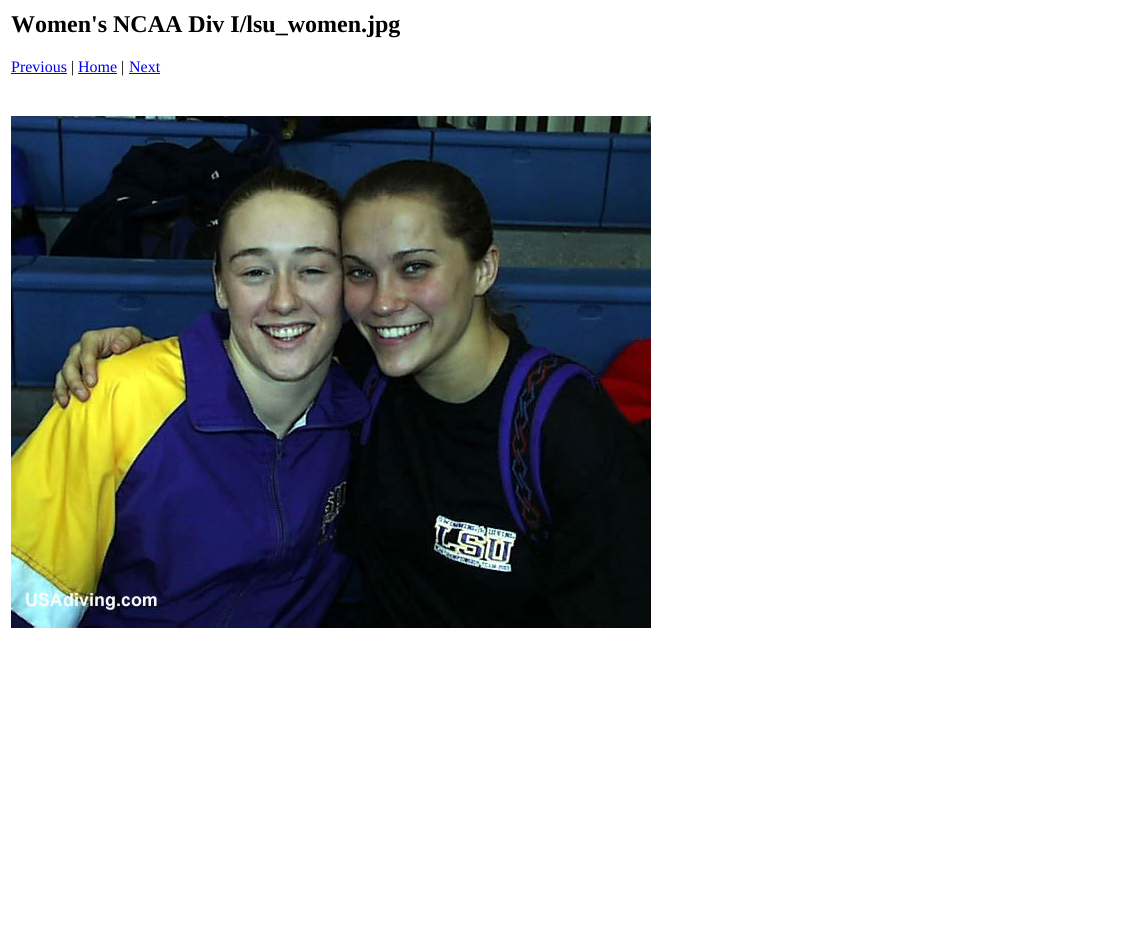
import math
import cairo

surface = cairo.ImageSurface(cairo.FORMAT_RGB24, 1134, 951)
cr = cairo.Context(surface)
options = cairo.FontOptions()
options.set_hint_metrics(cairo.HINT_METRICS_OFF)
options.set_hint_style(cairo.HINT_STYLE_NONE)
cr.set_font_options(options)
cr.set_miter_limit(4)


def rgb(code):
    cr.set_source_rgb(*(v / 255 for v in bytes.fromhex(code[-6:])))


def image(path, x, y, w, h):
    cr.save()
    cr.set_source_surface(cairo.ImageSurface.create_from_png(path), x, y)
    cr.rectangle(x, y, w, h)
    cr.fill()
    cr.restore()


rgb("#ffffff")
cr.paint()
for x, y, w, h, color in [
    (11, 73, 56, 1, "#0000ee"),
    (78, 73, 39, 1, "#0000ee"),
    (129, 73, 31, 1, "#0000ee"),
]:
    rgb(color)
    cr.rectangle(x, y, w, h)
    cr.fill()
image("img/1.png", 11, 116, 640, 512)
cr.select_font_face("Liberation Serif", cairo.FONT_SLANT_NORMAL, cairo.FONT_WEIGHT_BOLD)
cr.set_font_size(24)
rgb("#000000")
cr.move_to(11, 32)
cr.show_text("Women's NCAA Div I/lsu_women.jpg")
cr.select_font_face("Liberation Serif")
cr.set_font_size(16)
rgb("#0000ee")
cr.move_to(11, 72)
cr.show_text("Previous")
rgb("#000000")
cr.move_to(71, 72)
cr.show_text("|")
rgb("#0000ee")
cr.move_to(78, 72)
cr.show_text("Home")
rgb("#000000")
cr.move_to(121, 72)
cr.show_text("|")
rgb("#0000ee")
cr.move_to(129, 72)
cr.show_text("Next")
surface.write_to_png("page.png")
